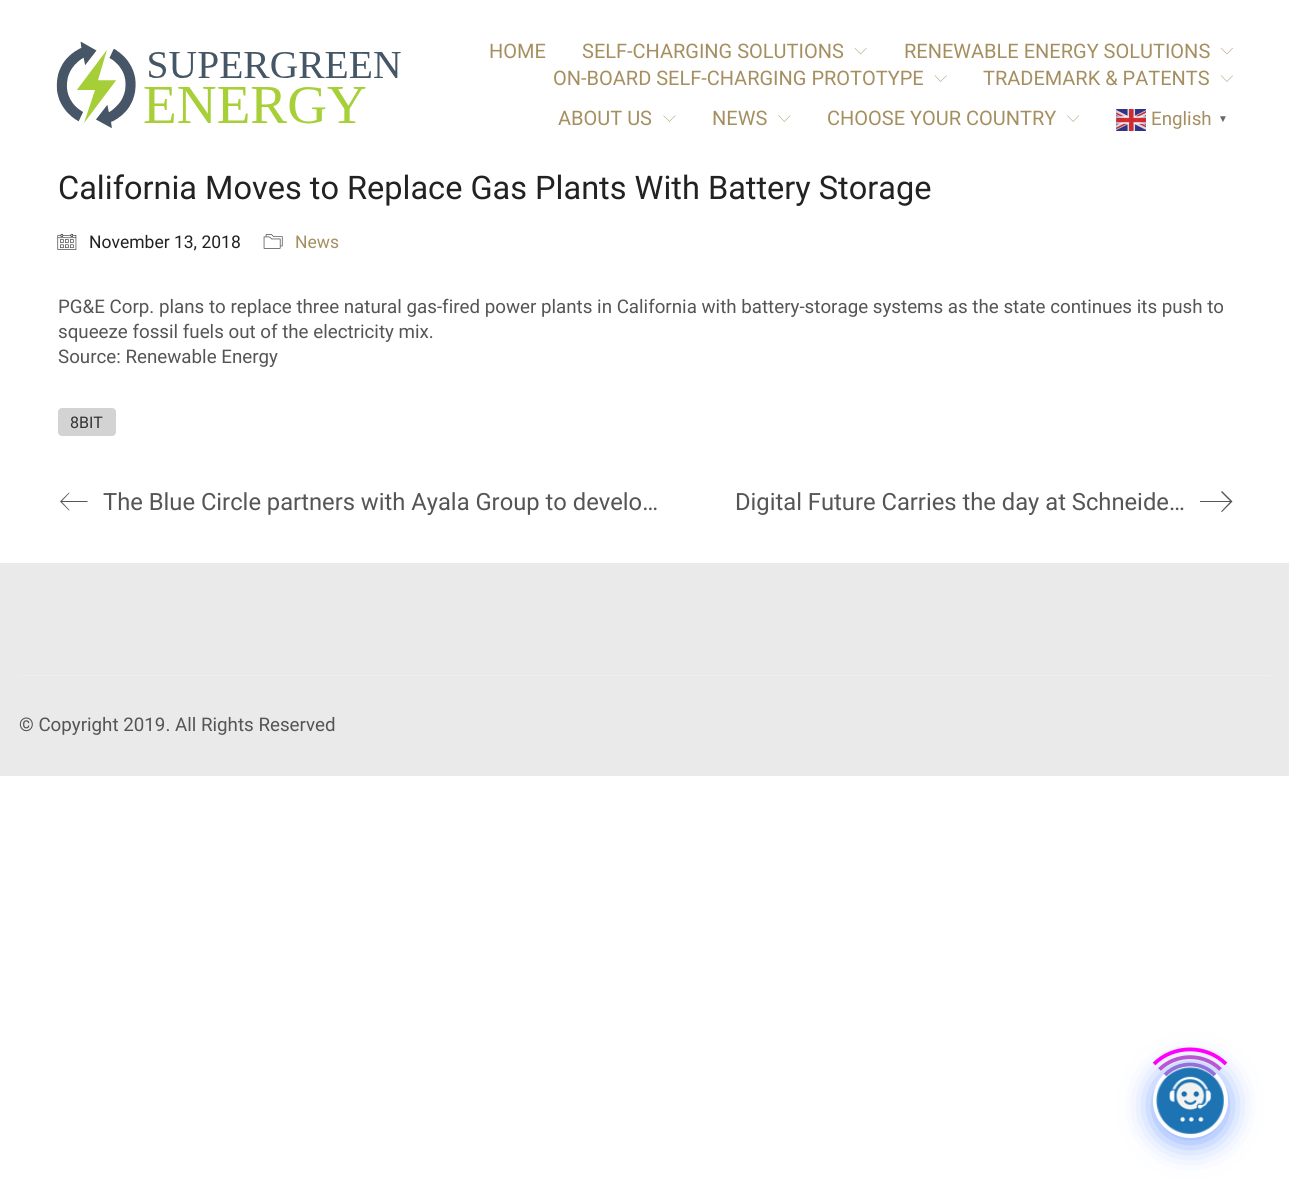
import math
import cairo

surface = cairo.ImageSurface(cairo.FORMAT_RGB24, 1289, 1200)
cr = cairo.Context(surface)
options = cairo.FontOptions()
options.set_hint_metrics(cairo.HINT_METRICS_OFF)
options.set_hint_style(cairo.HINT_STYLE_NONE)
cr.set_font_options(options)
cr.set_miter_limit(4)


def rgb(code):
    cr.set_source_rgb(*(v / 255 for v in bytes.fromhex(code[-6:])))


def rrect(x, y, w, h, r):
    cr.new_sub_path()
    for i, (u, v) in enumerate([(x + w - r, y + h - r), (x + r, y + h - r), (x + r, y + r), (x + w - r, y + r)]):
        cr.arc(u, v, r, i * math.pi / 2, (i + 1) * math.pi / 2)
    cr.close_path()


def soft_shadow(x, y, w, h, r, blur, alpha):
    cr.push_group_with_content(cairo.CONTENT_ALPHA)
    cr.set_operator(cairo.OPERATOR_SOURCE)
    for i in range(15, -16, -2):
        e = blur * i / 6
        if min(w, h) + 2 * e > 0:
            cr.set_source_rgba(0, 0, 0, alpha * math.erfc((i - 1) / 8.5) / 2)
            rrect(x - e, y - e, w + 2 * e, h + 2 * e, max(0, min(r + e + blur * .6, min(w, h) / 2 + e)))
            cr.fill()
    cr.mask(cr.pop_group())


def image(path, x, y, w, h):
    cr.save()
    cr.set_source_surface(cairo.ImageSurface.create_from_png(path), x, y)
    cr.rectangle(x, y, w, h)
    cr.fill()
    cr.restore()


rgb("#ffffff")
cr.paint()
image("img/1.png", 56, 41, 345, 88)
image("img/2.png", 854, 47, 13, 8)
image("img/3.png", 1220, 47, 13, 8)
image("img/4.png", 934, 75, 13, 7)
image("img/5.png", 1220, 75, 13, 7)
image("img/6.png", 663, 115, 13, 7)
image("img/6.png", 778, 115, 13, 7)
image("img/7.png", 1067, 115, 13, 7)
image("img/8.png", 1116, 109, 30, 22)
image("img/9.png", 57, 233, 20, 17)
image("img/10.png", 263, 234, 20, 15)
rgb("#d3d3d3")
rrect(58, 408, 58, 28, 4)
cr.fill()
rgb("#555555")
cr.new_path()
cr.move_to(87.5, 501)
cr.line_to(62, 501)
cr.line_to(69.5, 493)
cr.line_to(69, 492.5)
cr.line_to(60, 501.5)
cr.line_to(69, 510.5)
cr.line_to(69.5, 510)
cr.line_to(62, 502)
cr.line_to(87.5, 502)
cr.close_path()
cr.fill()
cr.new_path()
cr.move_to(1222, 491)
cr.line_to(1221, 492)
cr.line_to(1230, 501)
cr.line_to(1200, 501)
cr.line_to(1200, 502)
cr.line_to(1230, 502)
cr.line_to(1221, 511.5)
cr.line_to(1222, 512)
cr.line_to(1232.5, 501.5)
cr.close_path()
cr.fill()
rgb("#eaeaea")
cr.rectangle(0, 563, 1289, 213)
cr.fill()
rgb("#eeeeee")
cr.rectangle(19, 675, 1252, 1)
cr.fill()
rgb("#004dff")
soft_shadow(1153, 1068, 75, 75, 37.5, 15, 0.5)
rgb("#ffffff")
cr.arc(1190.5, 1100.5, 37.5, 0, 2 * math.pi)
cr.fill()
image("img/11.png", 1156, 1067, 68, 67)
cr.new_path()
cr.move_to(1165, 1075)
cr.curve_to(1178.5, 1061, 1201.5, 1061, 1215, 1075)
rgb("#9370db")
cr.set_line_width(3.8)
cr.stroke()
cr.new_path()
cr.move_to(1159.5, 1069.5)
cr.curve_to(1176, 1053, 1204, 1053, 1220.5, 1069.5)
rgb("#ba55d3")
cr.stroke()
cr.new_path()
cr.move_to(1154, 1064)
cr.curve_to(1173.5, 1044.5, 1206.5, 1044.5, 1226, 1064)
rgb("#ff00ff")
cr.stroke()
cr.select_font_face("Roboto")
cr.set_font_size(20)
rgb("#a58f60")
for x, y, s in [
    (489, 58, "HOME"),
    (582, 58, "SELF-CHARGING SOLUTIONS"),
    (904, 58, "RENEWABLE ENERGY SOLUTIONS"),
    (553, 85, "ON-BOARD SELF-CHARGING PROTOTYPE"),
    (983, 85, "TRADEMARK & PATENTS"),
    (558, 125, "ABOUT US"),
    (712, 125, "NEWS"),
    (827, 125, "CHOOSE YOUR COUNTRY"),
]:
    cr.move_to(x, y)
    cr.show_text(s)
cr.set_font_size(18.75)
cr.move_to(1151, 125)
cr.show_text("English")
cr.select_font_face("Liberation Sans", cairo.FONT_SLANT_NORMAL, cairo.FONT_WEIGHT_BOLD)
cr.set_font_size(10)
rgb("#666666")
cr.move_to(1218, 122)
cr.show_text("▼")
cr.select_font_face("Roboto")
cr.set_font_size(32.5)
rgb("#222222")
cr.move_to(58, 199)
cr.show_text("California Moves to Replace Gas Plants With Battery Storage")
cr.set_font_size(17.5)
cr.move_to(89, 248)
cr.show_text("November 13, 2018")
rgb("#a58f60")
cr.move_to(295, 248)
cr.show_text("News")
cr.set_font_size(18.75)
rgb("#555555")
for x, y, s in [
    (58, 313, "PG&E Corp. plans to replace three natural gas-fired power plants in California with battery-storage systems as the state continues its push to"),
    (58, 338, "squeeze fossil fuels out of the electricity mix."),
    (58, 363, "Source: Renewable Energy"),
]:
    cr.move_to(x, y)
    cr.show_text(s)
cr.set_font_size(16)
rgb("#333333")
cr.move_to(70, 428)
cr.show_text("8BIT")
cr.set_font_size(23.75)
rgb("#555555")
cr.move_to(103, 510)
cr.show_text("The Blue Circle partners with Ayala Group to develo…")
cr.move_to(735, 510)
cr.show_text("Digital Future Carries the day at Schneide…")
cr.set_font_size(18.75)
cr.move_to(19, 731)
cr.show_text("© Copyright 2019. All Rights Reserved")
surface.write_to_png("page.png")
